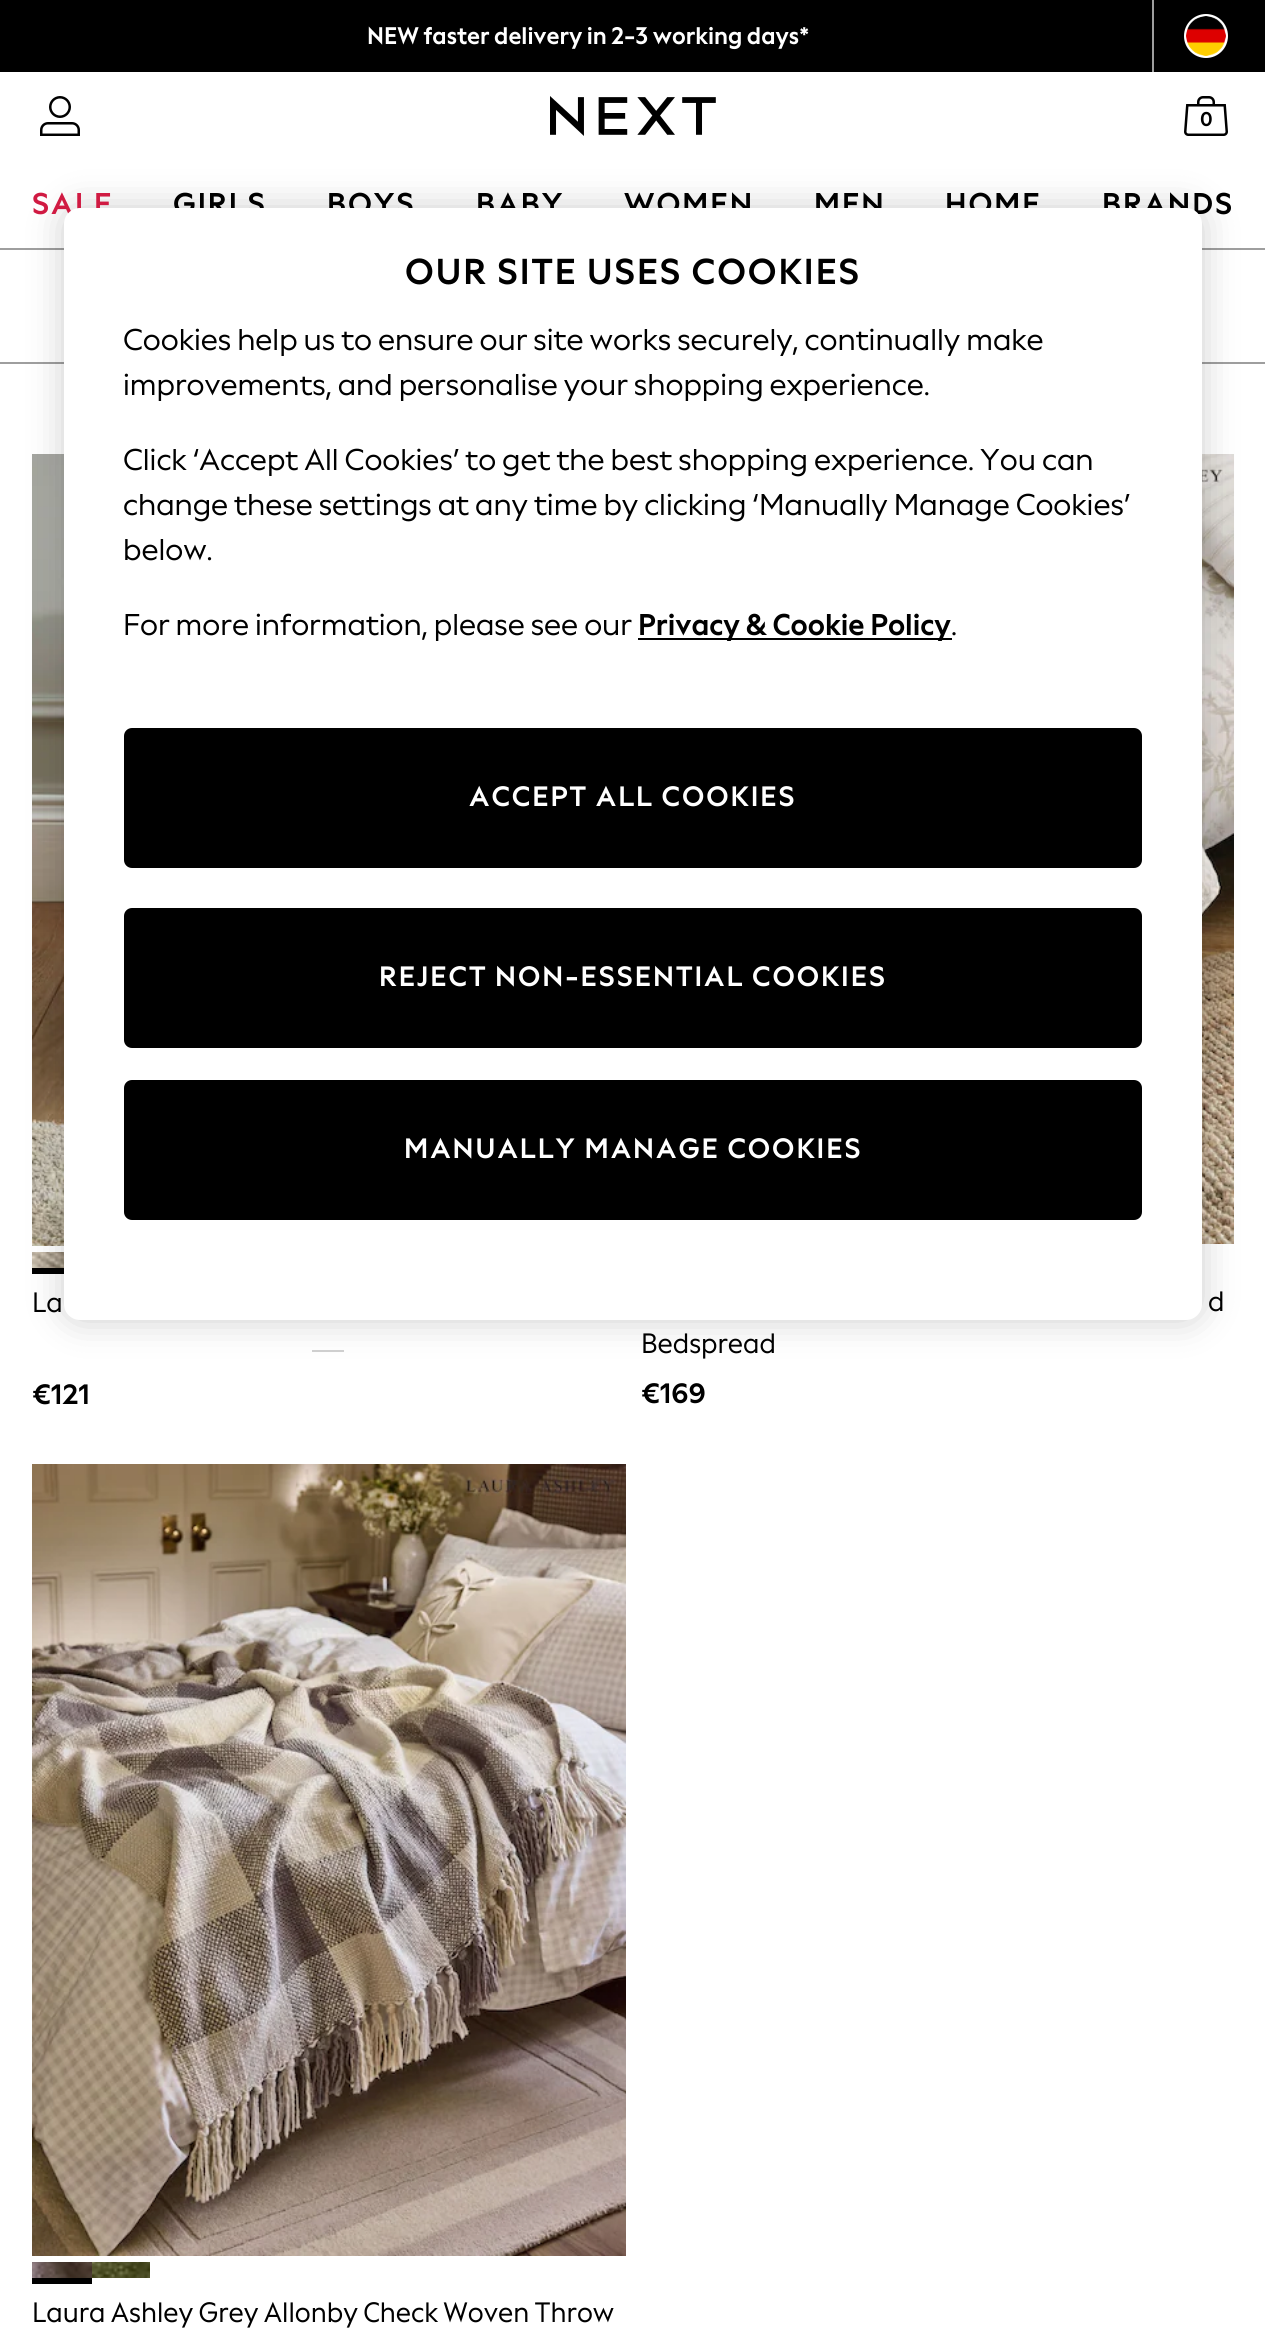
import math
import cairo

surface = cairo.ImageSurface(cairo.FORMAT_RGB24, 1265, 2348)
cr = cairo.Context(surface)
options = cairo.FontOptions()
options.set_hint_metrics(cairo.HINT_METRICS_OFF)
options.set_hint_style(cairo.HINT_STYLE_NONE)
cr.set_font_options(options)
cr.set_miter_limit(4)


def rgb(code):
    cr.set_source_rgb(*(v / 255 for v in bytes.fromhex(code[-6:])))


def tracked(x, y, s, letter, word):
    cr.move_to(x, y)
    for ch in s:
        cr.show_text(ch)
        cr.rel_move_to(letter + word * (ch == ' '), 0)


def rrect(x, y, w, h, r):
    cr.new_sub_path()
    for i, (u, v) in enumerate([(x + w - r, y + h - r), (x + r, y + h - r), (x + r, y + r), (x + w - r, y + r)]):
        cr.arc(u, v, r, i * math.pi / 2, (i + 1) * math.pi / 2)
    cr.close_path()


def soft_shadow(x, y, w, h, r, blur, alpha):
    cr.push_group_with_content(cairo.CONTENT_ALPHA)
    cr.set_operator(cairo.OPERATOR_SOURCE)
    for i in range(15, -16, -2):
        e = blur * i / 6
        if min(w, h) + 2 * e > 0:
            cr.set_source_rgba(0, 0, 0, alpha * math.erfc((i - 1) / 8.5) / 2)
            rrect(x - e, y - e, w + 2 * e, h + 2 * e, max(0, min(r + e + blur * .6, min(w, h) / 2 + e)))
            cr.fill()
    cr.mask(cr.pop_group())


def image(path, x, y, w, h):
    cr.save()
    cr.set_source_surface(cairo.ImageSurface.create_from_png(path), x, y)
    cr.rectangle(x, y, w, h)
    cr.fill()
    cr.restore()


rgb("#ffffff")
cr.paint()
rgb("#000000")
cr.rectangle(0, 0, 1265, 72)
cr.fill()
rgb("#9e9e9e")
cr.rectangle(1152, 0, 2, 72)
cr.fill()
rgb("#ffffff")
cr.arc(1206, 36, 21, 0, 2 * math.pi)
cr.fill_preserve()
cr.stroke()
image("img/1.png", 1186, 16, 40, 40)
image("img/2.png", 40, 96, 40, 40)
image("img/3.png", 550, 96, 166, 40)
image("img/4.png", 1184, 96, 44, 40)
rgb("#9e9e9e")
cr.rectangle(0, 248, 1265, 2)
cr.fill()
cr.rectangle(0, 362, 1265, 2)
cr.fill()
image("img/5.png", 32, 454, 32, 792)
rgb("#000000")
cr.rectangle(32, 1268, 32, 6)
cr.fill()
image("img/6.png", 32, 1252, 32, 16)
rgb("#d1d1d1")
cr.rectangle(312, 1350, 32, 2)
cr.fill()
image("img/7.png", 1202, 454, 32, 790)
rgb("#000000")
soft_shadow(64, 208, 1138, 1112, 16, 18, 0.2)
image("img/8.png", 32, 1464, 594, 792)
rgb("#000000")
cr.rectangle(32, 2278, 60, 6)
cr.fill()
image("img/9.png", 32, 2262, 60, 16)
image("img/10.png", 92, 2262, 58, 16)
cr.select_font_face("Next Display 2", cairo.FONT_SLANT_NORMAL, cairo.FONT_WEIGHT_BOLD)
cr.set_font_size(24)
rgb("#ffffff")
cr.move_to(367, 44)
cr.show_text("NEW faster delivery in 2-3 working days*")
cr.set_font_size(20)
rgb("#000000")
cr.move_to(1200, 126)
cr.show_text("0")
cr.select_font_face("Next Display", cairo.FONT_SLANT_NORMAL, cairo.FONT_WEIGHT_BOLD)
cr.set_font_size(30)
rgb("#d01a42")
tracked(32, 214, "SALE", 2, 0)
rgb("#000000")
for x, y, s in [
    (173, 214, "GIRLS"),
    (327, 214, "BOYS"),
    (476, 214, "BABY"),
    (624, 214, "WOMEN"),
    (814, 214, "MEN"),
    (945, 214, "HOME"),
    (1102, 214, "BRANDS"),
]:
    tracked(x, y, s, 2, 0)
rgb("#ffffff")
rrect(64, 208, 1138, 1112, 16)
cr.fill()
cr.set_font_size(36)
rgb("#000000")
tracked(405, 284, "OUR SITE USES COOKIES", 2, 0)
cr.select_font_face("Next Display 2")
cr.set_font_size(30)
for x, y, s in [
    (123, 350, "Cookies help us to ensure our site works securely, continually make"),
    (123, 395, "improvements, and personalise your shopping experience."),
    (123, 470, "Click ‘Accept All Cookies’ to get the best shopping experience. You can"),
    (123, 515, "change these settings at any time by clicking ‘Manually Manage Cookies’"),
    (123, 560, "below."),
    (123, 635, "For more information, please see our"),
]:
    cr.move_to(x, y)
    cr.show_text(s)
cr.rectangle(638, 638, 314, 2)
cr.fill()
cr.select_font_face("Next Display 2", cairo.FONT_SLANT_NORMAL, cairo.FONT_WEIGHT_BOLD)
cr.move_to(638, 635)
cr.show_text("Privacy & Cookie Policy")
cr.select_font_face("Next Display 2")
cr.move_to(951, 635)
cr.show_text(".")
rrect(125, 729, 1016, 138, 7)
cr.fill_preserve()
cr.stroke()
cr.select_font_face("Next Display", cairo.FONT_SLANT_NORMAL, cairo.FONT_WEIGHT_BOLD)
cr.set_font_size(28)
rgb("#ffffff")
tracked(469, 806, "ACCEPT ALL COOKIES", 2, 0)
rgb("#000000")
rrect(125, 909, 1016, 138, 7)
cr.fill_preserve()
cr.stroke()
rgb("#ffffff")
tracked(379, 986, "REJECT NON-ESSENTIAL COOKIES", 2, 0)
rgb("#000000")
rrect(125, 1081, 1016, 138, 7)
cr.fill_preserve()
cr.stroke()
rgb("#ffffff")
tracked(404, 1158, "MANUALLY MANAGE COOKIES", 2, 0)
cr.select_font_face("Next Display")
rgb("#000000")
cr.move_to(32, 1312)
cr.show_text("La")
cr.select_font_face("Next Display", cairo.FONT_SLANT_NORMAL, cairo.FONT_WEIGHT_BOLD)
cr.move_to(32, 1404)
cr.show_text("€121")
cr.select_font_face("Next Display")
cr.move_to(1208, 1311)
cr.show_text("d")
cr.move_to(641, 1353)
cr.show_text("Bedspread")
cr.select_font_face("Next Display", cairo.FONT_SLANT_NORMAL, cairo.FONT_WEIGHT_BOLD)
cr.move_to(641, 1403)
cr.show_text("€169")
cr.select_font_face("Next Display")
cr.move_to(32, 2322)
cr.show_text("Laura Ashley Grey Allonby Check Woven Throw")
surface.write_to_png("page.png")
